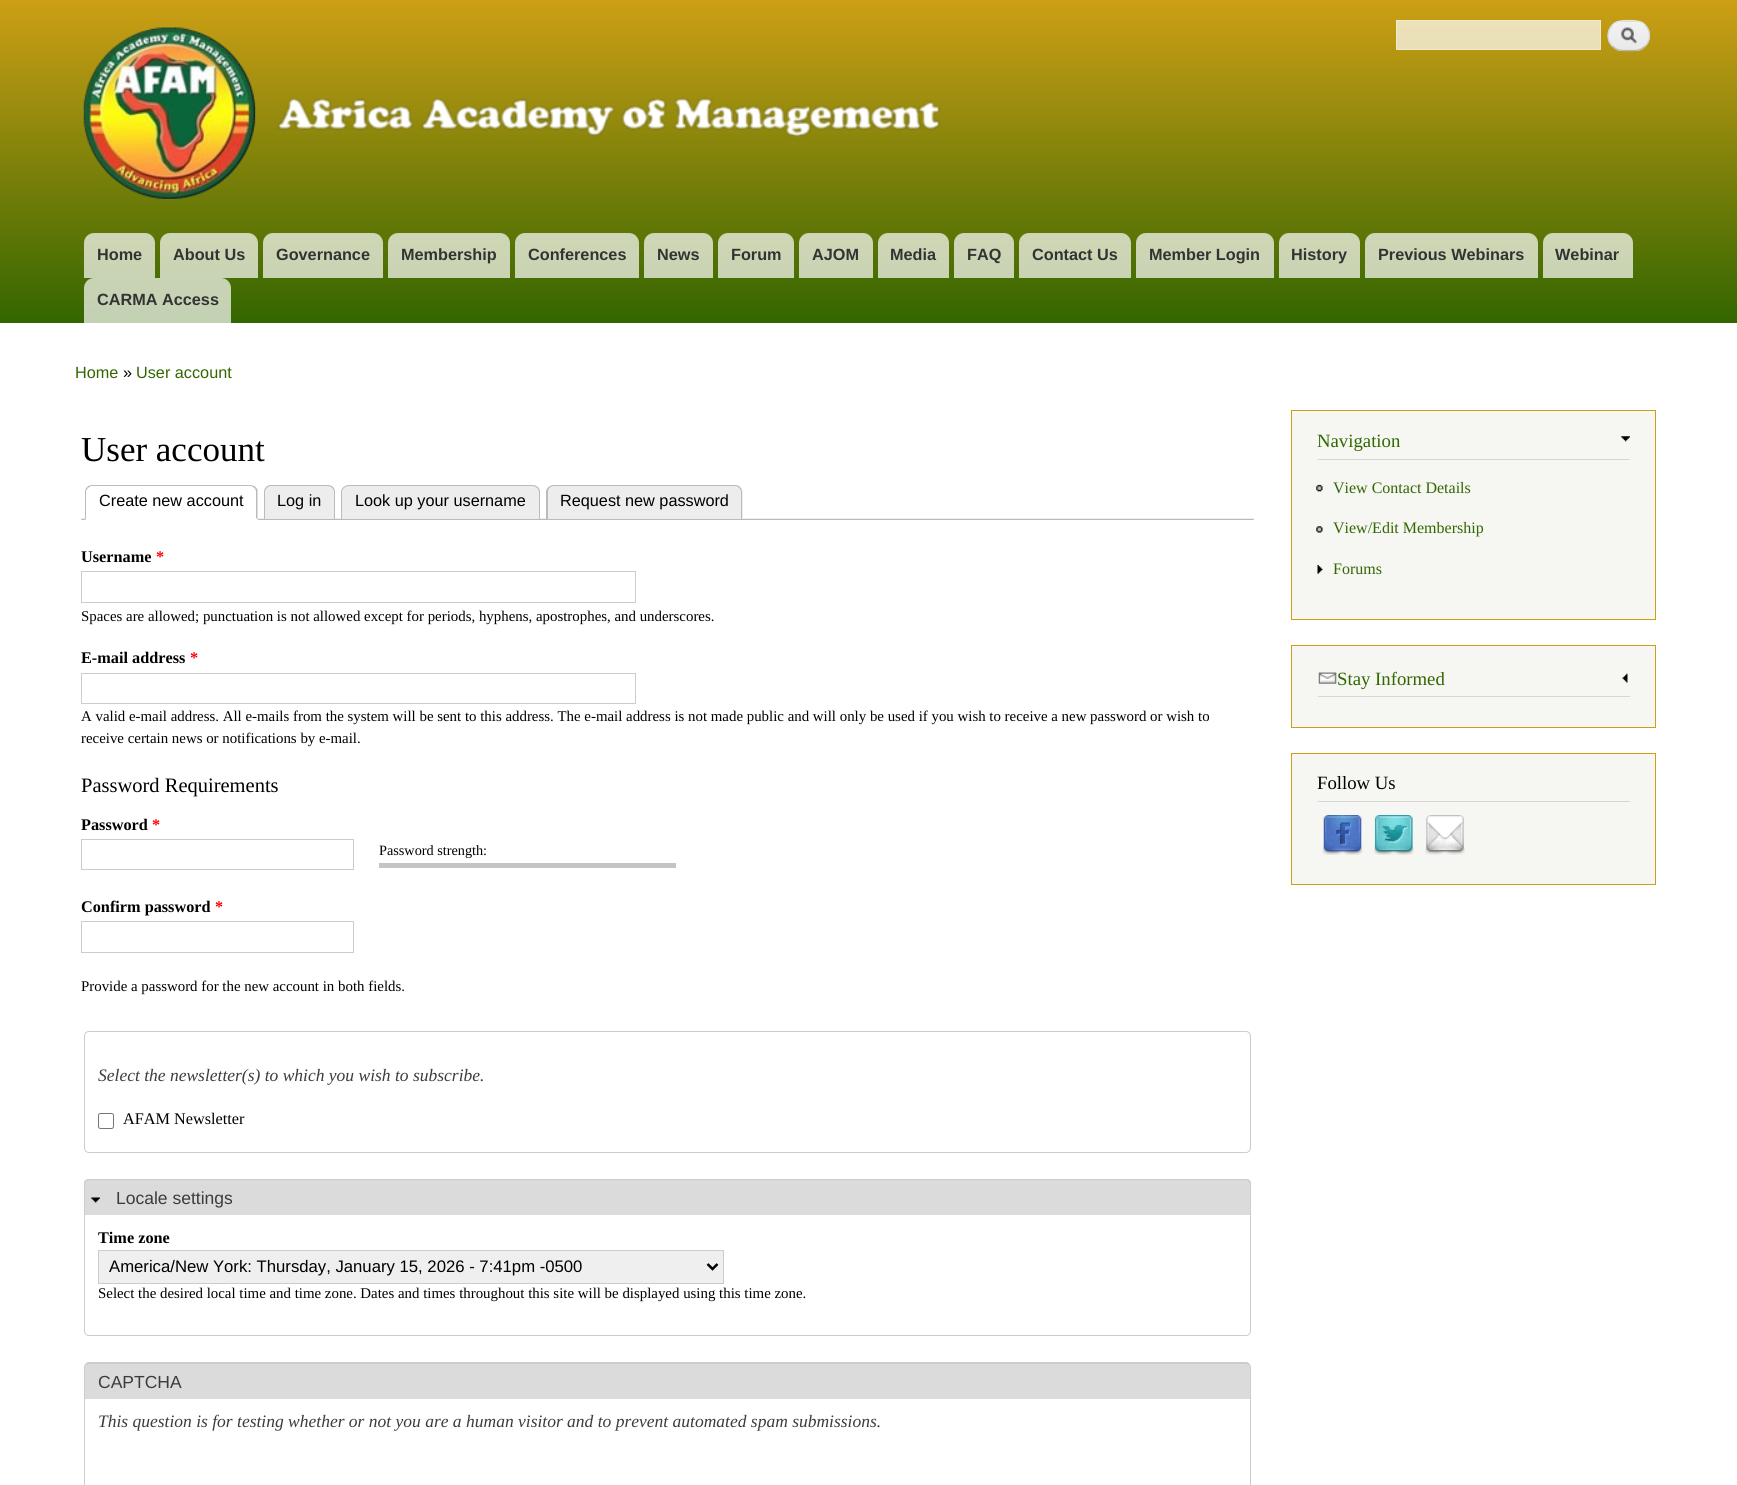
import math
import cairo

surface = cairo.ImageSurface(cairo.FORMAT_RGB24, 1737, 1485)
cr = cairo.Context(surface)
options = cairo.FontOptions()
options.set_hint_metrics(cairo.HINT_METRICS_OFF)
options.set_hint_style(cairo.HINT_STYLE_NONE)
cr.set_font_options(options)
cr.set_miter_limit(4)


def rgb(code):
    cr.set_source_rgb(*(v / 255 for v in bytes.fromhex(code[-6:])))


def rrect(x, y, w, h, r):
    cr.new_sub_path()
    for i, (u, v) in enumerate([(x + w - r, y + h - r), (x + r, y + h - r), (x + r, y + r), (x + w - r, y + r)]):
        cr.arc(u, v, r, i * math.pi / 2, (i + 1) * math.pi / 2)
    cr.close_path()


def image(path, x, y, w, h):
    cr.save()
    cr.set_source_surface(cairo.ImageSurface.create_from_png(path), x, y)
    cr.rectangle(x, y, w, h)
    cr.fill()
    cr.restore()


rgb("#ffffff")
cr.paint()
gradient = cairo.LinearGradient(869, 0, 869, 323)
gradient.add_color_stop_rgba(0, 0.804, 0.624, 0.082, 1)
gradient.add_color_stop_rgba(1, 0.2, 0.4, 0, 1)
cr.set_source(gradient)
cr.rectangle(0, 0, 1737, 323)
cr.fill()
gradient = cairo.LinearGradient(869, 0, 869, 323)
gradient.add_color_stop_rgba(0, 0.941, 0.886, 0.725, 1)
gradient.add_color_stop_rgba(1, 0.761, 0.82, 0.702, 1)
cr.set_source(gradient)
cr.rectangle(1396, 20, 205, 30)
cr.fill()
image("img/1.png", 83, 27, 857, 172)
cr.rectangle(1396.5, 20.5, 204, 29)
cr.set_source_rgba(1, 1, 1, 0.3)
cr.set_line_width(1)
cr.stroke()
image("img/2.png", 1607, 21, 43, 31)
cr.new_path()
cr.move_to(1612.5, 25)
cr.curve_to(1617, 20.5, 1622.5, 20.5, 1629, 20.5)
cr.curve_to(1635, 20.5, 1640.5, 20.5, 1645, 25)
rgb("#e4e4e4")
cr.set_line_width(1.2)
cr.stroke()
cr.new_path()
cr.move_to(1645, 25)
cr.curve_to(1651, 31, 1651, 40.5, 1645, 46)
rgb("#d2d2d2")
cr.stroke()
cr.new_path()
cr.move_to(1645, 46)
cr.curve_to(1640.5, 51, 1635, 50.5, 1629, 50.5)
cr.curve_to(1622.5, 50.5, 1617, 51, 1612.5, 46)
rgb("#b4b4b4")
cr.stroke()
cr.new_path()
cr.move_to(1612.5, 46)
cr.curve_to(1606.5, 40.5, 1606.5, 31, 1612.5, 25)
rgb("#d2d2d2")
cr.stroke()
cr.set_source_rgba(1, 1, 1, 0.7)
cr.new_path()
cr.move_to(94, 233)
cr.line_to(145, 233)
cr.curve_to(150.5, 233, 155, 237.5, 155, 243)
cr.line_to(155, 278)
cr.line_to(84, 278)
cr.line_to(84, 243)
cr.curve_to(84, 237.5, 88.5, 233, 94, 233)
cr.close_path()
cr.fill()
cr.new_path()
cr.move_to(170, 233)
cr.line_to(248, 233)
cr.curve_to(253.5, 233, 258, 237.5, 258, 243)
cr.line_to(258, 278)
cr.line_to(160, 278)
cr.line_to(160, 243)
cr.curve_to(160, 237.5, 164.5, 233, 170, 233)
cr.close_path()
cr.fill()
cr.new_path()
cr.move_to(273, 233)
cr.line_to(373, 233)
cr.curve_to(378.5, 233, 383, 237.5, 383, 243)
cr.line_to(383, 278)
cr.line_to(263, 278)
cr.line_to(263, 243)
cr.curve_to(263, 237.5, 267.5, 233, 273, 233)
cr.close_path()
cr.fill()
cr.new_path()
cr.move_to(398, 233)
cr.line_to(500, 233)
cr.curve_to(505.5, 233, 510, 237.5, 510, 243)
cr.line_to(510, 278)
cr.line_to(388, 278)
cr.line_to(388, 243)
cr.curve_to(388, 237.5, 392.5, 233, 398, 233)
cr.close_path()
cr.fill()
cr.new_path()
cr.move_to(525, 233)
cr.line_to(629, 233)
cr.curve_to(634.5, 233, 639, 237.5, 639, 243)
cr.line_to(639, 278)
cr.line_to(515, 278)
cr.line_to(515, 243)
cr.curve_to(515, 237.5, 519.5, 233, 525, 233)
cr.close_path()
cr.fill()
cr.new_path()
cr.move_to(654, 233)
cr.line_to(703, 233)
cr.curve_to(708.5, 233, 713, 237.5, 713, 243)
cr.line_to(713, 278)
cr.line_to(644, 278)
cr.line_to(644, 243)
cr.curve_to(644, 237.5, 648.5, 233, 654, 233)
cr.close_path()
cr.fill()
cr.new_path()
cr.move_to(728, 233)
cr.line_to(784, 233)
cr.curve_to(789.5, 233, 794, 237.5, 794, 243)
cr.line_to(794, 278)
cr.line_to(718, 278)
cr.line_to(718, 243)
cr.curve_to(718, 237.5, 722.5, 233, 728, 233)
cr.close_path()
cr.fill()
cr.new_path()
cr.move_to(809, 233)
cr.line_to(863, 233)
cr.curve_to(868.5, 233, 873, 237.5, 873, 243)
cr.line_to(873, 278)
cr.line_to(799, 278)
cr.line_to(799, 243)
cr.curve_to(799, 237.5, 803.5, 233, 809, 233)
cr.close_path()
cr.fill()
cr.new_path()
cr.move_to(888, 233)
cr.line_to(939, 233)
cr.curve_to(944.5, 233, 949, 237.5, 949, 243)
cr.line_to(949, 278)
cr.line_to(878, 278)
cr.line_to(878, 243)
cr.curve_to(878, 237.5, 882.5, 233, 888, 233)
cr.close_path()
cr.fill()
cr.new_path()
cr.move_to(964, 233)
cr.line_to(1004, 233)
cr.curve_to(1009.5, 233, 1014, 237.5, 1014, 243)
cr.line_to(1014, 278)
cr.line_to(954, 278)
cr.line_to(954, 243)
cr.curve_to(954, 237.5, 958.5, 233, 964, 233)
cr.close_path()
cr.fill()
cr.new_path()
cr.move_to(1029, 233)
cr.line_to(1121, 233)
cr.curve_to(1126.5, 233, 1131, 237.5, 1131, 243)
cr.line_to(1131, 278)
cr.line_to(1019, 278)
cr.line_to(1019, 243)
cr.curve_to(1019, 237.5, 1023.5, 233, 1029, 233)
cr.close_path()
cr.fill()
cr.new_path()
cr.move_to(1146, 233)
cr.line_to(1264, 233)
cr.curve_to(1269.5, 233, 1274, 237.5, 1274, 243)
cr.line_to(1274, 278)
cr.line_to(1136, 278)
cr.line_to(1136, 243)
cr.curve_to(1136, 237.5, 1140.5, 233, 1146, 233)
cr.close_path()
cr.fill()
cr.new_path()
cr.move_to(1289, 233)
cr.line_to(1350, 233)
cr.curve_to(1355.5, 233, 1360, 237.5, 1360, 243)
cr.line_to(1360, 278)
cr.line_to(1279, 278)
cr.line_to(1279, 243)
cr.curve_to(1279, 237.5, 1283.5, 233, 1289, 233)
cr.close_path()
cr.fill()
cr.new_path()
cr.move_to(1375, 233)
cr.line_to(1528, 233)
cr.curve_to(1533.5, 233, 1538, 237.5, 1538, 243)
cr.line_to(1538, 278)
cr.line_to(1365, 278)
cr.line_to(1365, 243)
cr.curve_to(1365, 237.5, 1369.5, 233, 1375, 233)
cr.close_path()
cr.fill()
cr.new_path()
cr.move_to(1553, 233)
cr.line_to(1623, 233)
cr.curve_to(1628.5, 233, 1633, 237.5, 1633, 243)
cr.line_to(1633, 278)
cr.line_to(1543, 278)
cr.line_to(1543, 243)
cr.curve_to(1543, 237.5, 1547.5, 233, 1553, 233)
cr.close_path()
cr.fill()
cr.new_path()
cr.move_to(94, 278)
cr.line_to(221, 278)
cr.curve_to(226.5, 278, 231, 282.5, 231, 288)
cr.line_to(231, 323)
cr.line_to(84, 323)
cr.line_to(84, 288)
cr.curve_to(84, 282.5, 88.5, 278, 94, 278)
cr.close_path()
cr.fill()
image("img/3.png", 81, 518, 1173, 2)
rgb("#ffffff")
cr.new_path()
cr.move_to(93, 485)
cr.line_to(250, 485)
cr.curve_to(254.5, 485, 258, 488.5, 258, 493)
cr.line_to(258, 520)
cr.line_to(85, 520)
cr.line_to(85, 493)
cr.curve_to(85, 488.5, 88.5, 485, 93, 485)
cr.close_path()
cr.fill()
rgb("#bbbbbb")
cr.new_path()
cr.move_to(92, 485)
cr.curve_to(90, 485, 88, 486, 87, 487)
cr.line_to(88, 488)
cr.line_to(91, 486)
cr.line_to(251, 486)
cr.curve_to(252, 486, 253, 487, 254, 488)
cr.line_to(256, 487)
cr.curve_to(254, 486, 252, 485, 250, 485)
cr.close_path()
cr.fill()
cr.new_path()
cr.move_to(257.5, 489.5)
cr.line_to(257.5, 520)
cr.line_to(256, 518.5)
cr.line_to(256, 492)
cr.curve_to(256, 490.5, 255.5, 489, 254.5, 488)
cr.line_to(255.5, 487)
cr.close_path()
cr.fill()
rgb("#ffffff")
cr.new_path()
cr.move_to(258, 520)
cr.line_to(256, 518)
cr.line_to(256, 519)
cr.line_to(86, 519)
cr.line_to(85, 520)
cr.close_path()
cr.fill()
rgb("#bbbbbb")
cr.new_path()
cr.move_to(85, 520)
cr.line_to(86, 519)
cr.line_to(86, 492)
cr.curve_to(86, 490.5, 87, 489, 88, 488)
cr.line_to(87, 487)
cr.curve_to(86, 488, 85, 490, 85, 492)
cr.close_path()
cr.fill()
rgb("#ededed")
cr.new_path()
cr.move_to(272, 485)
cr.line_to(327, 485)
cr.curve_to(331.5, 485, 335, 488.5, 335, 493)
cr.line_to(335, 519)
cr.line_to(264, 519)
cr.line_to(264, 493)
cr.curve_to(264, 488.5, 267.5, 485, 272, 485)
cr.close_path()
cr.fill()
rgb("#bbbbbb")
cr.set_fill_rule(cairo.FILL_RULE_EVEN_ODD)
cr.new_path()
cr.move_to(271, 485)
cr.line_to(328, 485)
cr.curve_to(332, 485, 335, 488, 335, 492)
cr.line_to(335, 519)
cr.line_to(264, 519)
cr.line_to(264, 492)
cr.curve_to(264, 488, 267, 485, 271, 485)
cr.close_path()
cr.move_to(271, 486)
cr.line_to(328, 486)
cr.curve_to(331, 486, 334, 489, 334, 492)
cr.line_to(334, 519)
cr.line_to(265, 519)
cr.line_to(265, 492)
cr.curve_to(265, 489, 268, 486, 271, 486)
cr.close_path()
cr.fill()
rgb("#ededed")
cr.new_path()
cr.move_to(349, 485)
cr.line_to(532, 485)
cr.curve_to(536.5, 485, 540, 488.5, 540, 493)
cr.line_to(540, 519)
cr.line_to(341, 519)
cr.line_to(341, 493)
cr.curve_to(341, 488.5, 344.5, 485, 349, 485)
cr.close_path()
cr.fill()
rgb("#bbbbbb")
cr.new_path()
cr.move_to(349, 485)
cr.line_to(532, 485)
cr.curve_to(537, 485, 540, 488, 540, 492)
cr.line_to(540, 519)
cr.line_to(341, 519)
cr.line_to(341, 492)
cr.curve_to(341, 488, 345, 485, 349, 485)
cr.close_path()
cr.move_to(349, 486)
cr.line_to(532, 486)
cr.curve_to(536, 486, 539, 489, 539, 492)
cr.line_to(539, 519)
cr.line_to(342, 519)
cr.line_to(342, 492)
cr.curve_to(342, 489, 345, 486, 349, 486)
cr.close_path()
cr.fill()
rgb("#ededed")
cr.new_path()
cr.move_to(554, 485)
cr.line_to(735, 485)
cr.curve_to(739.5, 485, 743, 488.5, 743, 493)
cr.line_to(743, 519)
cr.line_to(546, 519)
cr.line_to(546, 493)
cr.curve_to(546, 488.5, 549.5, 485, 554, 485)
cr.close_path()
cr.fill()
rgb("#bbbbbb")
cr.new_path()
cr.move_to(554, 485)
cr.line_to(735, 485)
cr.curve_to(739, 485, 742, 488, 742, 492)
cr.line_to(742, 519)
cr.line_to(546, 519)
cr.line_to(546, 492)
cr.curve_to(546, 488, 550, 485, 554, 485)
cr.close_path()
cr.move_to(554, 486)
cr.line_to(735, 486)
cr.curve_to(738, 486, 741, 489, 741, 492)
cr.line_to(741, 519)
cr.line_to(548, 519)
cr.line_to(548, 492)
cr.curve_to(548, 489, 550, 486, 554, 486)
cr.close_path()
cr.fill()
cr.rectangle(81.5, 571.5, 554, 31)
rgb("#cccccc")
cr.set_line_width(1)
cr.stroke()
cr.rectangle(81.5, 673.5, 554, 30)
cr.stroke()
cr.rectangle(81.5, 839.5, 272, 30)
cr.stroke()
rgb("#c4c4c4")
cr.rectangle(379, 863, 297, 5)
cr.fill()
cr.rectangle(81.5, 921.5, 272, 31)
rgb("#cccccc")
cr.stroke()
rrect(84.5, 1031.5, 1166, 121, 4.5)
cr.stroke()
rrect(98.5, 1113.5, 15, 15, 2)
rgb("#767676")
cr.stroke()
rrect(84.5, 1193.5, 1166, 142, 4.5)
rgb("#cccccc")
cr.stroke()
rgb("#dbdbdb")
cr.new_path()
cr.move_to(89, 1179)
cr.line_to(1246, 1179)
cr.curve_to(1249, 1179, 1251, 1181, 1251, 1184)
cr.line_to(1251, 1215)
cr.line_to(84, 1215)
cr.line_to(84, 1184)
cr.curve_to(84, 1181, 86, 1179, 89, 1179)
cr.close_path()
cr.fill()
rgb("#cccccc")
cr.new_path()
cr.move_to(89, 1179)
cr.line_to(1246, 1179)
cr.curve_to(1249, 1179, 1251, 1181, 1251, 1184)
cr.line_to(1251, 1215)
cr.line_to(84, 1215)
cr.line_to(84, 1184)
cr.curve_to(84, 1181, 86, 1179, 89, 1179)
cr.close_path()
cr.move_to(89, 1180)
cr.line_to(1246, 1180)
cr.curve_to(1248, 1180, 1250, 1182, 1250, 1184)
cr.line_to(1250, 1215)
cr.line_to(85, 1215)
cr.line_to(85, 1184)
cr.curve_to(85, 1182, 87, 1180, 89, 1180)
cr.close_path()
cr.fill()
image("img/4.png", 91, 1197, 9, 6)
rgb("#efefef")
cr.rectangle(98.5, 1250.5, 625, 33)
cr.fill_preserve()
rgb("#cccccc")
cr.stroke()
cr.new_path()
cr.move_to(707.5, 1264)
cr.line_to(712.5, 1269)
cr.line_to(717.5, 1264)
rgb("#000000")
cr.set_line_width(2.5)
cr.stroke()
cr.rectangle(84.5, 1376.5, 1166, 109)
rgb("#cccccc")
cr.set_line_width(1)
cr.stroke()
rgb("#dbdbdb")
cr.new_path()
cr.move_to(89, 1363)
cr.line_to(1246, 1363)
cr.curve_to(1249, 1363, 1251, 1365, 1251, 1368)
cr.line_to(1251, 1399)
cr.line_to(84, 1399)
cr.line_to(84, 1368)
cr.curve_to(84, 1365, 86, 1363, 89, 1363)
cr.close_path()
cr.fill()
rgb("#cccccc")
cr.new_path()
cr.move_to(89, 1362)
cr.line_to(1246, 1362)
cr.curve_to(1249, 1362, 1251, 1365, 1251, 1368)
cr.line_to(1251, 1399)
cr.line_to(84, 1399)
cr.line_to(84, 1368)
cr.curve_to(84, 1365, 86, 1362, 89, 1362)
cr.close_path()
cr.move_to(89, 1364)
cr.line_to(1246, 1364)
cr.curve_to(1248, 1364, 1250, 1365, 1250, 1368)
cr.line_to(1250, 1399)
cr.line_to(85, 1399)
cr.line_to(85, 1368)
cr.curve_to(85, 1365, 87, 1364, 89, 1364)
cr.close_path()
cr.fill()
rgb("#f6f6f2")
cr.rectangle(1291.5, 410.5, 364, 209)
cr.fill_preserve()
rgb("#cd9f15")
cr.stroke()
rgb("#d6d6d6")
cr.rectangle(1318, 459, 312, 1)
cr.fill()
image("img/5.png", 1621, 436, 9, 6)
image("img/6.png", 1316, 484, 7, 8)
image("img/7.png", 1316, 526, 7, 7)
image("img/8.png", 1317, 565, 6, 9)
rgb("#f6f6f2")
cr.rectangle(1291.5, 645.5, 364, 82)
cr.fill_preserve()
rgb("#cd9f15")
cr.stroke()
rgb("#d6d6d6")
cr.rectangle(1318, 696, 312, 1)
cr.fill()
image("img/9.png", 1622, 673, 6, 10)
image("img/10.png", 1318, 672, 19, 12)
rgb("#f6f6f2")
cr.rectangle(1291.5, 753.5, 364, 131)
cr.fill_preserve()
rgb("#cd9f15")
cr.stroke()
rgb("#d6d6d6")
cr.rectangle(1318, 801, 312, 1)
cr.fill()
image("img/11.png", 1322, 815, 41, 40)
image("img/12.png", 1374, 815, 40, 40)
image("img/13.png", 1425, 815, 40, 40)
cr.select_font_face("Liberation Sans", cairo.FONT_SLANT_NORMAL, cairo.FONT_WEIGHT_BOLD)
cr.set_font_size(16.25)
rgb("#333333")
for x, y, s in [
    (97, 260, "Home"),
    (173, 260, "About Us"),
    (276, 260, "Governance"),
    (401, 260, "Membership"),
    (528, 260, "Conferences"),
    (657, 260, "News"),
    (731, 260, "Forum"),
    (812, 260, "AJOM"),
    (890, 260, "Media"),
    (967, 260, "FAQ"),
    (1032, 260, "Contact Us"),
    (1149, 260, "Member Login"),
    (1291, 260, "History"),
    (1378, 260, "Previous Webinars"),
    (1555, 260, "Webinar"),
    (97, 305, "CARMA Access"),
]:
    cr.move_to(x, y)
    cr.show_text(s)
cr.select_font_face("Liberation Sans")
rgb("#326600")
cr.move_to(75, 378)
cr.show_text("Home")
rgb("#000000")
cr.move_to(123, 378)
cr.show_text("»")
rgb("#326600")
cr.move_to(136, 378)
cr.show_text("User account")
cr.select_font_face("Liberation Serif")
cr.set_font_size(35)
rgb("#000000")
cr.move_to(81, 461)
cr.show_text("User account")
cr.select_font_face("Liberation Sans")
cr.set_font_size(16.25)
for x, y, s in [
    (99, 506, "Create new account"),
    (277, 506, "Log in"),
    (355, 506, "Look up your username"),
    (560, 506, "Request new password"),
]:
    cr.move_to(x, y)
    cr.show_text(s)
cr.select_font_face("Liberation Serif", cairo.FONT_SLANT_NORMAL, cairo.FONT_WEIGHT_BOLD)
cr.move_to(81, 562)
cr.show_text("Username")
rgb("#ff0000")
cr.move_to(156, 562)
cr.show_text("*")
cr.select_font_face("Liberation Serif")
cr.set_font_size(14.88)
rgb("#000000")
cr.move_to(81, 621)
cr.show_text("Spaces are allowed; punctuation is not allowed except for periods, hyphens, apostrophes, and underscores.")
cr.select_font_face("Liberation Serif", cairo.FONT_SLANT_NORMAL, cairo.FONT_WEIGHT_BOLD)
cr.set_font_size(16.25)
cr.move_to(81, 663)
cr.show_text("E-mail address")
rgb("#ff0000")
cr.move_to(190, 663)
cr.show_text("*")
cr.select_font_face("Liberation Serif")
cr.set_font_size(14.88)
rgb("#000000")
cr.move_to(81, 721)
cr.show_text("A valid e-mail address. All e-mails from the system will be sent to this address. The e-mail address is not made public and will only be used if you wish to receive a new password or wish to")
cr.move_to(81, 743)
cr.show_text("receive certain news or notifications by e-mail.")
cr.set_font_size(20.5)
cr.move_to(81, 792)
cr.show_text("Password Requirements")
cr.select_font_face("Liberation Serif", cairo.FONT_SLANT_NORMAL, cairo.FONT_WEIGHT_BOLD)
cr.set_font_size(16.25)
cr.move_to(81, 830)
cr.show_text("Password")
rgb("#ff0000")
cr.move_to(152, 830)
cr.show_text("*")
cr.select_font_face("Liberation Serif")
cr.set_font_size(14.25)
rgb("#000000")
cr.move_to(379, 855)
cr.show_text("Password strength:")
cr.select_font_face("Liberation Serif", cairo.FONT_SLANT_NORMAL, cairo.FONT_WEIGHT_BOLD)
cr.set_font_size(16.25)
cr.move_to(81, 912)
cr.show_text("Confirm password")
rgb("#ff0000")
cr.move_to(215, 912)
cr.show_text("*")
cr.select_font_face("Liberation Serif")
cr.set_font_size(14.88)
rgb("#000000")
cr.move_to(81, 991)
cr.show_text("Provide a password for the new account in both fields.")
cr.select_font_face("Liberation Serif", cairo.FONT_SLANT_ITALIC)
cr.set_font_size(17.5)
rgb("#3c3c3c")
cr.move_to(98, 1081)
cr.show_text("Select the newsletter(s) to which you wish to subscribe.")
cr.select_font_face("Liberation Serif")
cr.set_font_size(16.25)
rgb("#000000")
cr.move_to(123, 1124)
cr.show_text("AFAM Newsletter")
cr.select_font_face("Liberation Sans")
cr.set_font_size(17.5)
rgb("#3c3c3c")
cr.move_to(116, 1204)
cr.show_text("Locale settings")
cr.select_font_face("Liberation Serif", cairo.FONT_SLANT_NORMAL, cairo.FONT_WEIGHT_BOLD)
cr.set_font_size(16.25)
rgb("#000000")
cr.move_to(98, 1243)
cr.show_text("Time zone")
cr.select_font_face("Liberation Sans")
cr.set_font_size(16.7)
cr.move_to(109, 1272)
cr.show_text("America/New York: Thursday, January 15, 2026 - 7:41pm -0500")
cr.select_font_face("Liberation Serif")
cr.set_font_size(14.88)
cr.move_to(98, 1298)
cr.show_text("Select the desired local time and time zone. Dates and times throughout this site will be displayed using this time zone.")
cr.select_font_face("Liberation Sans")
cr.set_font_size(17.5)
rgb("#3c3c3c")
cr.move_to(98, 1388)
cr.show_text("CAPTCHA")
cr.select_font_face("Liberation Serif", cairo.FONT_SLANT_ITALIC)
cr.move_to(98, 1427)
cr.show_text("This question is for testing whether or not you are a human visitor and to prevent automated spam submissions.")
cr.select_font_face("Liberation Serif")
cr.set_font_size(18.75)
rgb("#326600")
cr.move_to(1317, 447)
cr.show_text("Navigation")
cr.set_font_size(16)
for x, y, s in [
    (1333, 493, "View Contact Details"),
    (1333, 533, "View/Edit Membership"),
    (1333, 574, "Forums"),
]:
    cr.move_to(x, y)
    cr.show_text(s)
cr.set_font_size(18.75)
cr.move_to(1337, 685)
cr.show_text("Stay Informed")
rgb("#000000")
cr.move_to(1317, 789)
cr.show_text("Follow Us")
surface.write_to_png("page.png")
